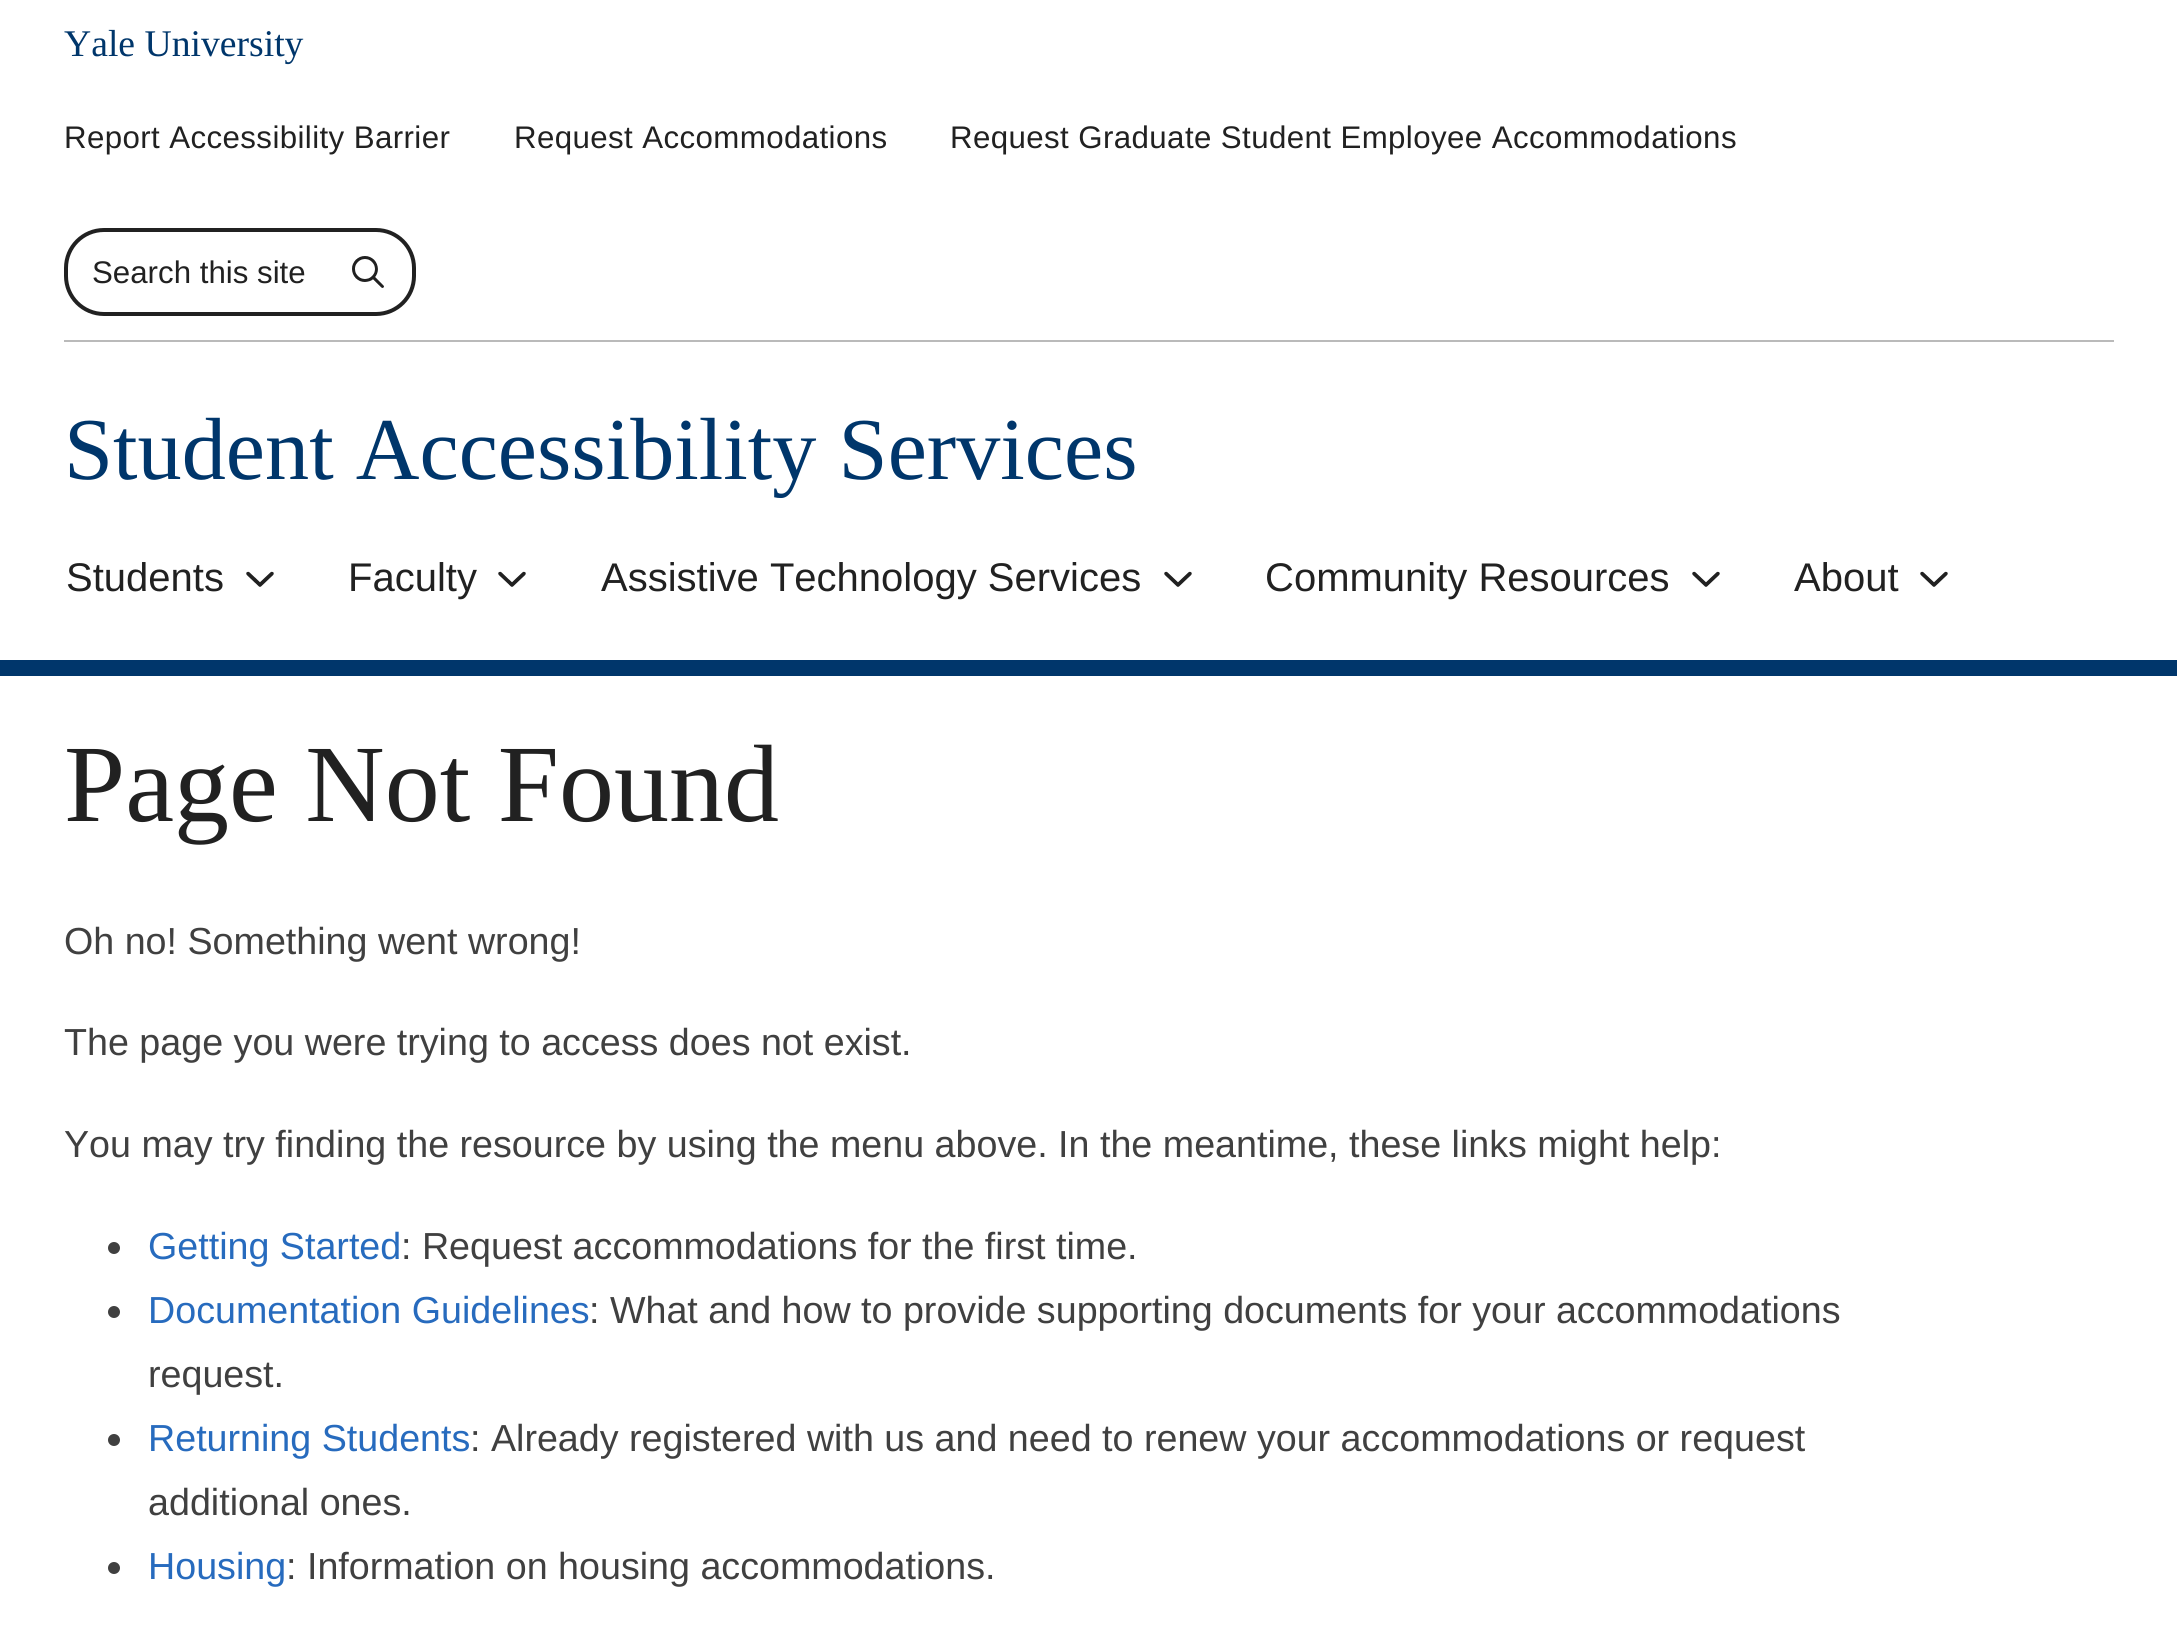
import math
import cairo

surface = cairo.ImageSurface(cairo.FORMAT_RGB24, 2177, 1634)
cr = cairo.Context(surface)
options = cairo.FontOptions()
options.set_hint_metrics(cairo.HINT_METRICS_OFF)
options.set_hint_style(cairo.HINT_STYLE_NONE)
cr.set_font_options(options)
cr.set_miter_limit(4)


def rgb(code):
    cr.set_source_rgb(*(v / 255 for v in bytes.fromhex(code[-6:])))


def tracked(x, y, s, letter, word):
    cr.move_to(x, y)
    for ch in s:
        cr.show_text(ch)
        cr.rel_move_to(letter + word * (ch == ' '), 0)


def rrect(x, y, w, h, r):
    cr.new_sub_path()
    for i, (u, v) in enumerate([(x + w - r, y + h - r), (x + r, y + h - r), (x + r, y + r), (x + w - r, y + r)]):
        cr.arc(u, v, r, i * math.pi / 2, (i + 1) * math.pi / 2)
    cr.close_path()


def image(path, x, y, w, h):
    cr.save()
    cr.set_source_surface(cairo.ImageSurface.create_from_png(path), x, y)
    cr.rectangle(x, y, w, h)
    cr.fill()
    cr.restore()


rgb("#ffffff")
cr.paint()
rgb("#00366b")
cr.rectangle(0, 660, 2177, 16)
cr.fill()
rgb("#bababa")
cr.rectangle(64, 340, 2050, 2)
cr.fill()
rrect(66, 230, 348, 84, 38)
rgb("#212121")
cr.set_line_width(4)
cr.stroke()
image("img/1.png", 352, 256, 32, 32)
image("img/2.png", 246, 571, 28, 16)
image("img/3.png", 498, 571, 28, 16)
image("img/4.png", 1164, 571, 28, 16)
image("img/4.png", 1692, 571, 28, 16)
image("img/4.png", 1920, 571, 28, 16)
rgb("#404040")
cr.arc(114, 1248, 6, 0, 2 * math.pi)
cr.fill()
cr.arc(114, 1312, 6, 0, 2 * math.pi)
cr.fill()
cr.arc(114, 1440, 6, 0, 2 * math.pi)
cr.fill()
cr.arc(114, 1568, 6, 0, 2 * math.pi)
cr.fill()
cr.select_font_face("Liberation Serif")
cr.set_font_size(37.65)
rgb("#00366b")
cr.move_to(64, 56)
cr.show_text("Yale University")
cr.select_font_face("Liberation Sans")
cr.set_font_size(31.25)
rgb("#212121")
for x, y, s in [
    (64, 148, "Report Accessibility Barrier"),
    (514, 148, "Request Accommodations"),
    (950, 148, "Request Graduate Student Employee Accommodations"),
]:
    tracked(x, y, s, 0.4, 0)
cr.move_to(92, 283)
cr.show_text("Search this site")
cr.select_font_face("Liberation Serif")
cr.set_font_size(88.25)
rgb("#00366b")
cr.move_to(64, 479)
cr.show_text("Student Accessibility Services")
cr.select_font_face("Liberation Sans")
cr.set_font_size(40)
rgb("#212121")
for x, y, s in [
    (66, 591, "Students"),
    (348, 591, "Faculty"),
    (601, 591, "Assistive Technology Services"),
    (1265, 591, "Community Resources"),
    (1794, 591, "About"),
]:
    cr.move_to(x, y)
    cr.show_text(s)
cr.select_font_face("Liberation Serif")
cr.set_font_size(110)
cr.move_to(64, 821)
cr.show_text("Page Not Found")
cr.select_font_face("Liberation Sans")
cr.set_font_size(37.65)
rgb("#404040")
for x, y, s in [
    (64, 954, "Oh no! Something went wrong!"),
    (64, 1055, "The page you were trying to access does not exist."),
    (64, 1157, "You may try finding the resource by using the menu above. In the meantime, these links might help:"),
]:
    cr.move_to(x, y)
    cr.show_text(s)
rgb("#276bbe")
cr.move_to(148, 1259)
cr.show_text("Getting Started")
rgb("#404040")
cr.move_to(401, 1259)
cr.show_text(": Request accommodations for the first time.")
rgb("#276bbe")
cr.move_to(148, 1323)
cr.show_text("Documentation Guidelines")
rgb("#404040")
cr.move_to(589, 1323)
cr.show_text(": What and how to provide supporting documents for your accommodations")
cr.move_to(148, 1387)
cr.show_text("request.")
rgb("#276bbe")
cr.move_to(148, 1451)
cr.show_text("Returning Students")
rgb("#404040")
cr.move_to(470, 1451)
cr.show_text(": Already registered with us and need to renew your accommodations or request")
cr.move_to(148, 1515)
cr.show_text("additional ones.")
rgb("#276bbe")
cr.move_to(148, 1579)
cr.show_text("Housing")
rgb("#404040")
cr.move_to(286, 1579)
cr.show_text(": Information on housing accommodations.")
surface.write_to_png("page.png")
